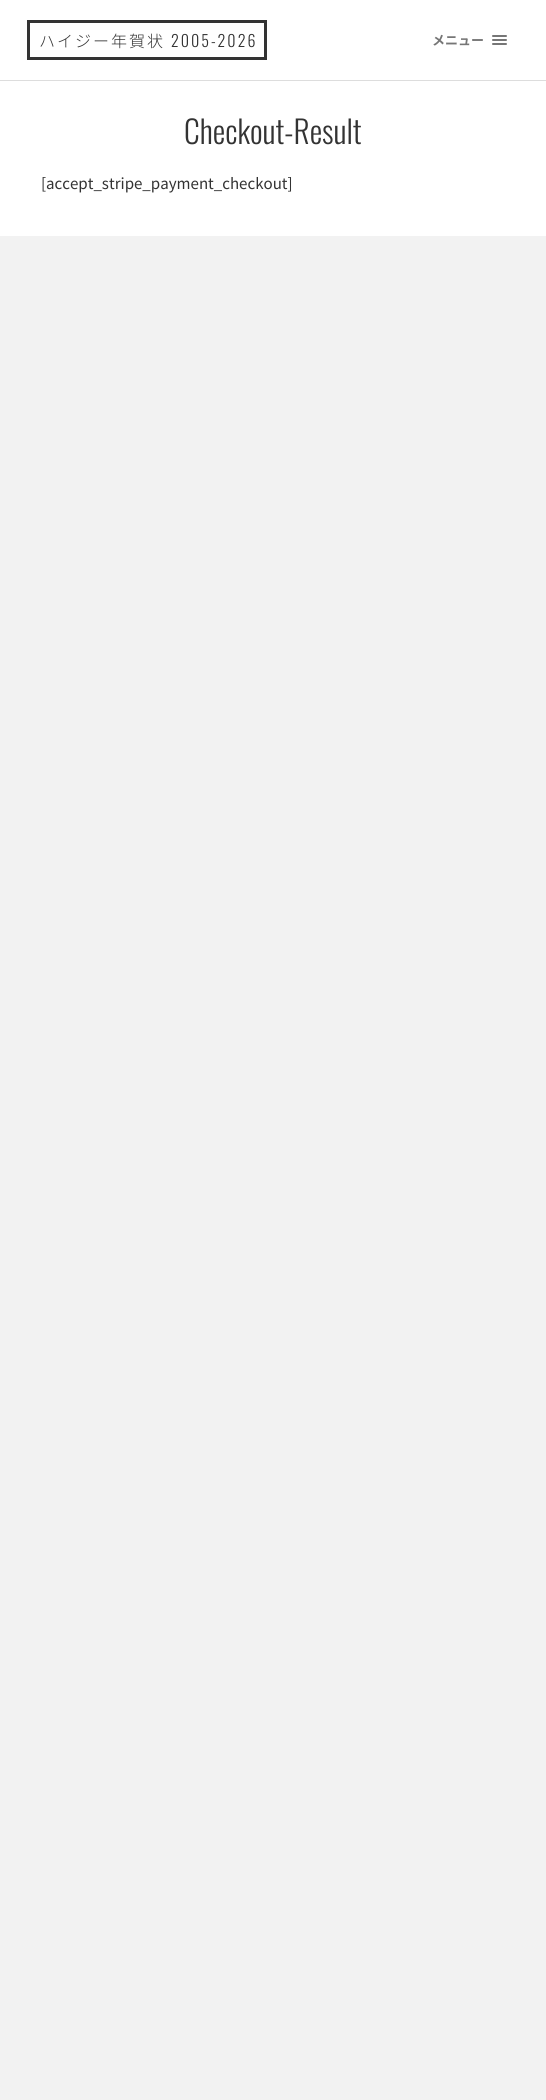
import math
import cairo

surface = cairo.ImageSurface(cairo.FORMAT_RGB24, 546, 2100)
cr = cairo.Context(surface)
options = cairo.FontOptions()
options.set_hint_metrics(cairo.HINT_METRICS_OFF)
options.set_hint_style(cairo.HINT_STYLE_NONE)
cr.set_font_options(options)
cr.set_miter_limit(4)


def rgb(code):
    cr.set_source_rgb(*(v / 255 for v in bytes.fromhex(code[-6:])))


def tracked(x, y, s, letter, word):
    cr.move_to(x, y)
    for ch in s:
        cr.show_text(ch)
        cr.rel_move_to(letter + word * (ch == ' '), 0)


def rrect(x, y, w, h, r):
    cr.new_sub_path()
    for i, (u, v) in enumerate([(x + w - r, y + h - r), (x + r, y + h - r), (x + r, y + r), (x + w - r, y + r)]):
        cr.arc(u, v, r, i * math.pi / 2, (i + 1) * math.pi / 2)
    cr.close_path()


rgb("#f2f2f2")
cr.paint()
rgb("#ffffff")
cr.rectangle(0, 0, 546, 80)
cr.fill()
rgb("#dddddd")
cr.rectangle(0, 80, 546, 1)
cr.fill()
cr.rectangle(28.5, 21.5, 237, 37)
rgb("#333333")
cr.set_line_width(3)
cr.stroke()
rgb("#767676")
rrect(492, 35, 15, 2, 1)
cr.fill()
rrect(492, 39, 15, 2, 1)
cr.fill()
rrect(492, 43, 15, 2, 1)
cr.fill()
rgb("#ffffff")
cr.rectangle(0, 81, 546, 155)
cr.fill()
cr.select_font_face("Noto Sans JP Light")
cr.set_font_size(16)
rgb("#333333")
tracked(39, 47, "ハイジー年賀状", 2, 0)
cr.select_font_face("Oswald Light")
tracked(171, 47, "2005-2026", 2, 0)
cr.select_font_face("Noto Sans JP", cairo.FONT_SLANT_NORMAL, cairo.FONT_WEIGHT_BOLD)
cr.set_font_size(13)
rgb("#767676")
cr.move_to(432, 45)
cr.show_text("メニュー")
cr.select_font_face("Oswald Light")
cr.set_font_size(31.5)
rgb("#333333")
cr.move_to(184, 144)
cr.show_text("Checkout-Result")
cr.select_font_face("Noto Sans JP")
cr.set_font_size(15.1)
cr.move_to(41, 189)
cr.show_text("[accept_stripe_payment_checkout]")
surface.write_to_png("page.png")
